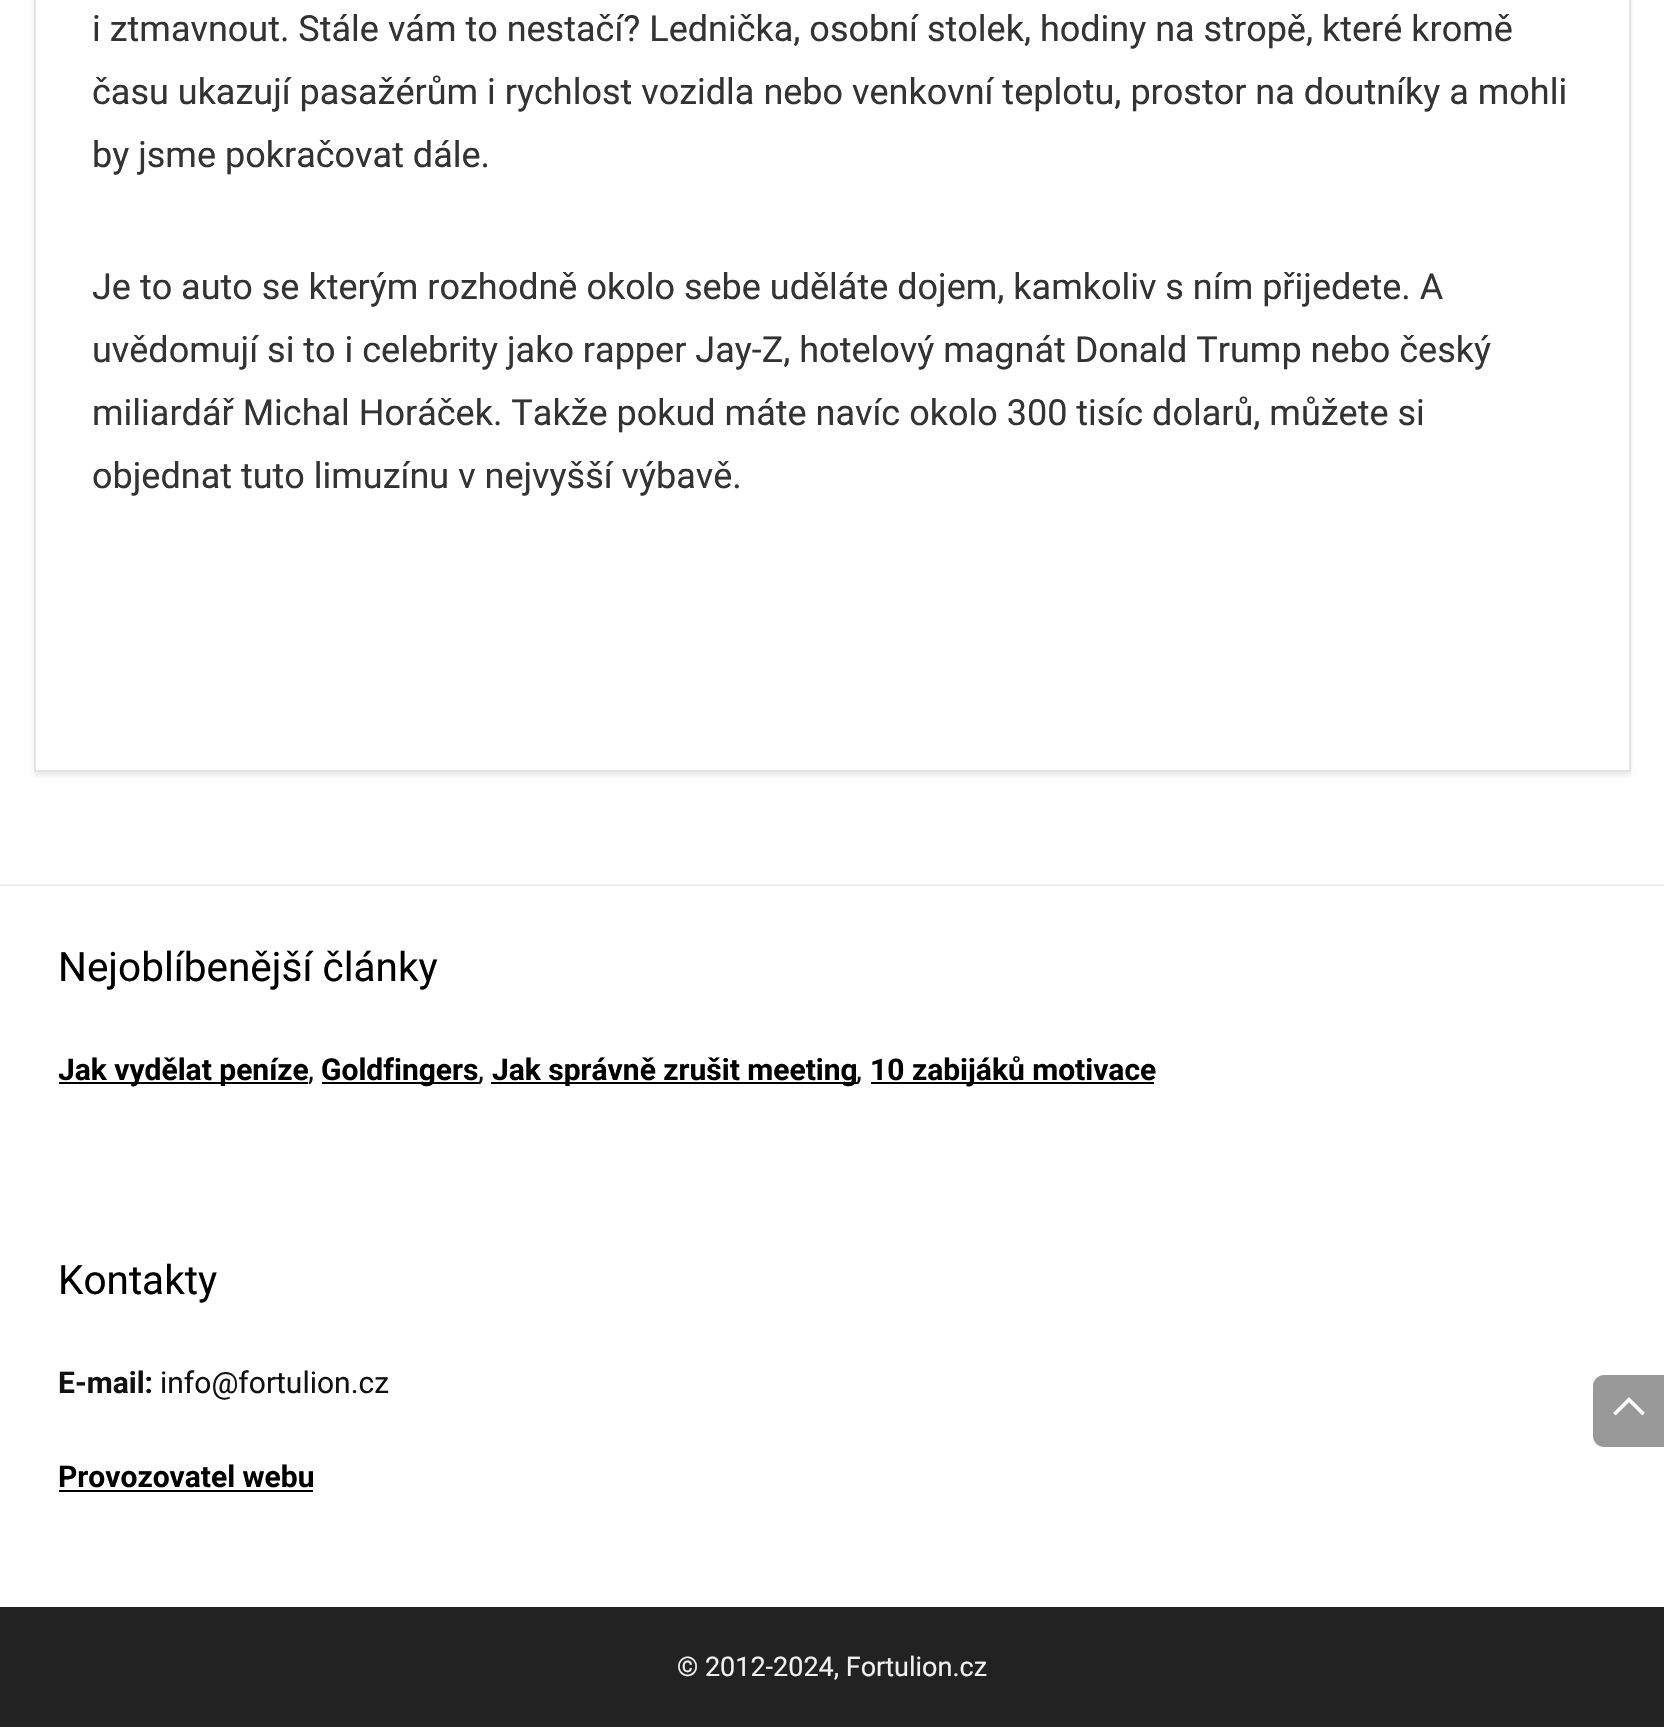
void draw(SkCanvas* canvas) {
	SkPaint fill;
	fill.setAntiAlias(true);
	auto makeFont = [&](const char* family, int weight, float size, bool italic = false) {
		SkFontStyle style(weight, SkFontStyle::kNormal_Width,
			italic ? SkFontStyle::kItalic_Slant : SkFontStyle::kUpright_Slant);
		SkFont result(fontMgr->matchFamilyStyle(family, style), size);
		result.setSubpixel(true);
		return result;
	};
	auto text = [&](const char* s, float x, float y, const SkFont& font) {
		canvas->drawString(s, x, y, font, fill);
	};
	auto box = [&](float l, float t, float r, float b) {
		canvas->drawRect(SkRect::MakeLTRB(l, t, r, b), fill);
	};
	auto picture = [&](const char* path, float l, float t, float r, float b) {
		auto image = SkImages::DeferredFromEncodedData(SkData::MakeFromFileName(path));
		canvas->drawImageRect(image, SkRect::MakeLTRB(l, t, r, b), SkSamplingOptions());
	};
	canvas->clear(0xFFFFFFFF);
	fill.setColor(0xFFECECEC);
	fill.setMaskFilter(SkMaskFilter::MakeBlur(kNormal_SkBlurStyle, 2));
	canvas->drawRect(SkRect::MakeLTRB(34, -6, 1631, 776), fill);
	fill.setMaskFilter(nullptr);
	fill.setColor(0xFFFFFFFF);
	canvas->drawRect(SkRect::MakeLTRB(35, -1, 1630, 771), fill);
	fill.setStyle(SkPaint::kStroke_Style);
	fill.setStrokeWidth(2);
	fill.setColor(0xFFE3E3E3);
	canvas->drawRect(SkRect::MakeLTRB(35, -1, 1630, 771), fill);
	fill.setStyle(SkPaint::kFill_Style);
	fill.setColor(0xFFEEEEEE);
	box(0, 884, 1664, 886);
	fill.setColor(0xFF000000);
	box(59, 1082, 308, 1084);
	box(322, 1082, 479, 1084);
	box(491, 1082, 857, 1084);
	box(871, 1082, 1154, 1084);
	box(59, 1490, 313, 1492);
	fill.setColor(0xFF222222);
	box(0, 1607, 1664, 1727);
	fill.setColor(0xFF999999);
	canvas->drawPath(SkPathBuilder().moveTo(1604, 1375).lineTo(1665, 1375).lineTo(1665, 1447).lineTo(1604, 1447).cubicTo(1598, 1447, 1593, 1442, 1593, 1436).lineTo(1593, 1386).cubicTo(1593, 1380, 1598, 1375, 1604, 1375).close().detach(), fill);
	picture("image0.png", 1613, 1397, 1645, 1416);
	auto font1 = makeFont("Roboto", 400, 36);
	fill.setColor(0xFF333333);
	text("i ztmavnout. Stále vám to nestačí? Lednička, osobní stolek, hodiny na stropě, které kromě", 92, 41, font1);
	text("času ukazují pasažérům i rychlost vozidla nebo venkovní teplotu, prostor na doutníky a mohli", 92, 104, font1);
	text("by jsme pokračovat dále.", 92, 167, font1);
	text("Je to auto se kterým rozhodně okolo sebe uděláte dojem, kamkoliv s ním přijedete. A", 92, 299, font1);
	text("uvědomují si to i celebrity jako rapper Jay-Z, hotelový magnát Donald Trump nebo český", 92, 362, font1);
	text("miliardář Michal Horáček. Takže pokud máte navíc okolo 300 tisíc dolarů, můžete si", 92, 425, font1);
	text("objednat tuto limuzínu v nejvyšší výbavě.", 92, 488, font1);
	auto font2 = makeFont("Roboto", 400, 40.5f);
	fill.setColor(0xFF000000);
	text("Nejoblíbenější články", 58, 981, font2);
	canvas->save();
	canvas->clipRect(SkRect::MakeLTRB(59, 943, 1607, 1143));
	auto font3 = makeFont("Roboto", 700, 30);
	text("Jak vydělat peníze", 58, 1080, font3);
	canvas->restore();
	auto font4 = makeFont("Roboto", 400, 30);
	fill.setColor(0xFF111111);
	text(",", 308, 1080, font4);
	fill.setColor(0xFF000000);
	text("Goldfingers", 321, 1080, font3);
	fill.setColor(0xFF111111);
	text(",", 478, 1080, font4);
	fill.setColor(0xFF000000);
	text("Jak správně zrušit meeting", 492, 1080, font3);
	fill.setColor(0xFF111111);
	text(",", 856, 1080, font4);
	fill.setColor(0xFF000000);
	text("10 zabijáků motivace", 870, 1080, font3);
	text("Kontakty", 58, 1294, font2);
	fill.setColor(0xFF111111);
	text("E-mail:", 58, 1393, font3);
	text("info@fortulion.cz", 160, 1393, font4);
	fill.setColor(0xFF000000);
	text("Provozovatel webu", 58, 1487, font3);
	auto font5 = makeFont("Roboto", 400, 27);
	fill.setColor(0xFFF1F1F1);
	text("© 2012-2024, Fortulion.cz", 677, 1676, font5);
}
